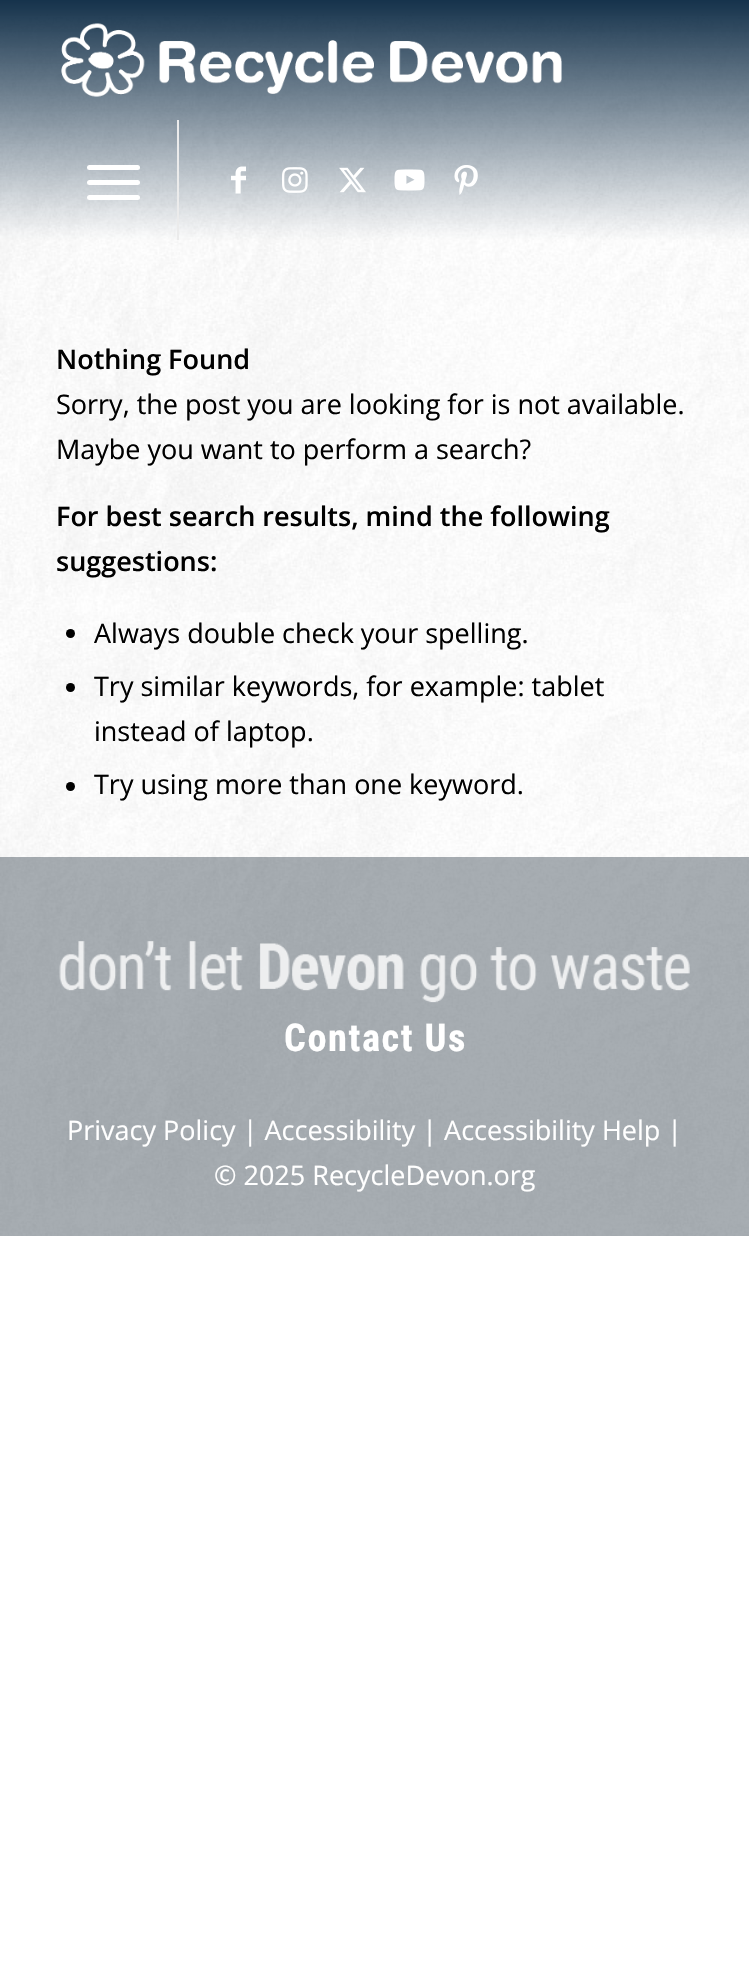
void draw(SkCanvas* canvas) {
	SkPaint fill;
	fill.setAntiAlias(true);
	auto makeFont = [&](const char* family, int weight, float size, bool italic = false) {
		SkFontStyle style(weight, SkFontStyle::kNormal_Width,
			italic ? SkFontStyle::kItalic_Slant : SkFontStyle::kUpright_Slant);
		SkFont result(fontMgr->matchFamilyStyle(family, style), size);
		result.setSubpixel(true);
		return result;
	};
	auto text = [&](const char* s, float x, float y, const SkFont& font) {
		canvas->drawString(s, x, y, font, fill);
	};
	auto spacedText = [&](const char* s, float x, float y, const SkFont& font, const SkPaint& ink, float letter, float word) {
		std::vector<SkGlyphID> glyphs(font.countText(s, strlen(s), SkTextEncoding::kUTF8));
		std::vector<float> xs(glyphs.size());
		font.textToGlyphs(s, strlen(s), SkTextEncoding::kUTF8, glyphs);
		font.getXPos(glyphs, xs, x);
		float extra = 0;
		for (size_t i = 0; i < glyphs.size(); i++) {
			xs[i] += extra;
			extra += letter + word * (glyphs[i] == font.unicharToGlyph(' '));
		}
		canvas->drawTextBlob(SkTextBlob::MakeFromPosHGlyphs(glyphs, xs, y, font), 0, 0, ink);
	};
	auto box = [&](float l, float t, float r, float b) {
		canvas->drawRect(SkRect::MakeLTRB(l, t, r, b), fill);
	};
	auto roundBox = [&](float l, float t, float r, float b, float radius) {
		canvas->drawRoundRect(SkRect::MakeLTRB(l, t, r, b), radius, radius, fill);
	};
	auto picture = [&](const char* path, float l, float t, float r, float b) {
		auto image = SkImages::DeferredFromEncodedData(SkData::MakeFromFileName(path));
		canvas->drawImageRect(image, SkRect::MakeLTRB(l, t, r, b), SkSamplingOptions());
	};
	canvas->clear(0xFFFFFFFF);
	picture("image0.png", 0, 0, 749, 1236);
	picture("image1.png", 61, 23, 562, 97);
	fill.setColor(0xFFEBEBEB);
	box(177, 120, 179, 240);
	fill.setColor(0xFFFFFFFF);
	roundBox(87, 180, 140, 185, 2.5f);
	roundBox(87, 165, 140, 170, 2.5f);
	roundBox(87, 195, 140, 200, 2.5f);
	picture("image2.png", 231, 166, 246, 194);
	picture("image3.png", 282, 167, 308, 193);
	picture("image4.png", 339, 167, 366, 193);
	picture("image5.png", 394, 169, 425, 191);
	picture("image6.png", 454, 165, 478, 195);
	fill.setColor(0xFF000000);
	canvas->drawCircle(70.5f, 633.5f, 4.5f, fill);
	canvas->drawCircle(70.5f, 687.5f, 4.5f, fill);
	canvas->drawCircle(70.5f, 786.5f, 4.5f, fill);
	fill.setColor(0x66263440);
	box(0, 857, 749, 1236);
	picture("image7.png", 59, 941, 690, 1003);
	auto font1 = makeFont("Open Sans", 600, 27);
	fill.setColor(0xFF000000);
	text("Nothing Found", 56, 369, font1);
	auto font2 = makeFont("Open Sans", 400, 27);
	text("Sorry, the post you are looking for is not available.", 56, 414, font2);
	text("Maybe you want to perform a search?", 56, 459, font2);
	text("For best search results, mind the following", 56, 526, font1);
	text("suggestions:", 56, 571, font1);
	text("Always double check your spelling.", 94, 643, font2);
	text("Try similar keywords, for example: tablet", 94, 696, font2);
	text("instead of laptop.", 94, 741, font2);
	text("Try using more than one keyword.", 94, 794, font2);
	auto font3 = makeFont("Roboto Condensed", 700, 38.5f);
	fill.setColor(0xFFFFFFFF);
	spacedText("Contact Us", 284, 1051, font3, fill, 1.5f, 0);
	text("Privacy Policy | Accessibility | Accessibility Help |", 67, 1140, font2);
	text("© 2025 RecycleDevon.org", 214, 1185, font2);
}
